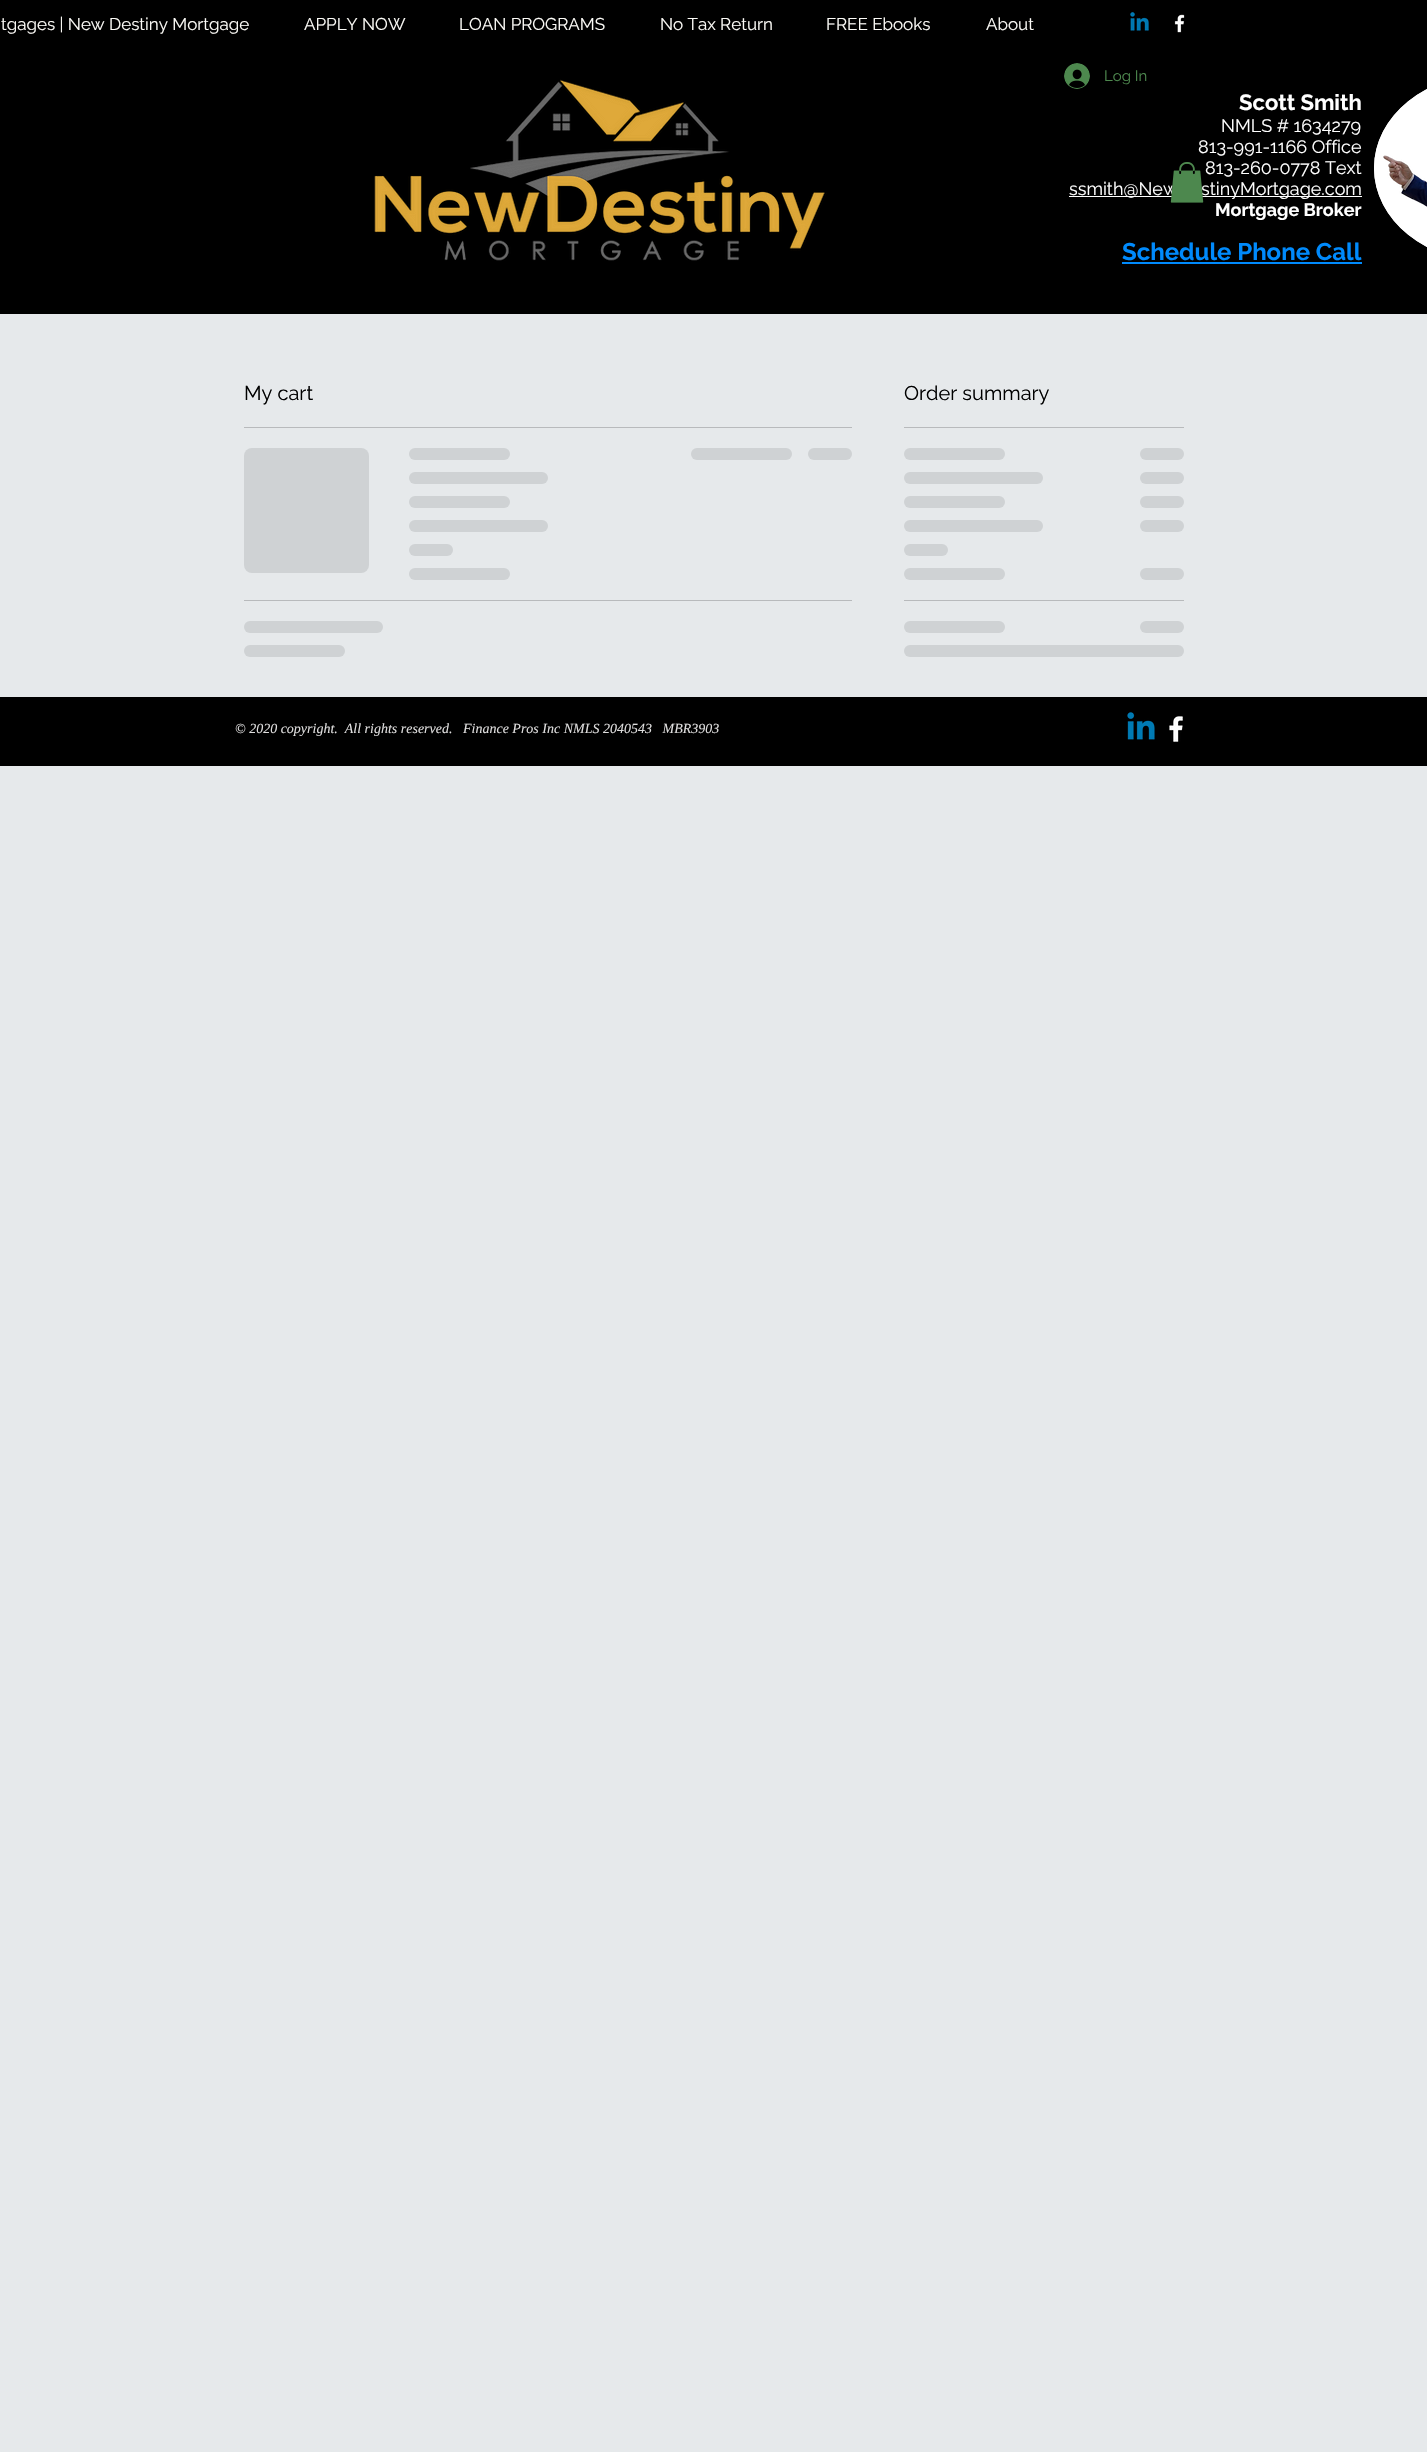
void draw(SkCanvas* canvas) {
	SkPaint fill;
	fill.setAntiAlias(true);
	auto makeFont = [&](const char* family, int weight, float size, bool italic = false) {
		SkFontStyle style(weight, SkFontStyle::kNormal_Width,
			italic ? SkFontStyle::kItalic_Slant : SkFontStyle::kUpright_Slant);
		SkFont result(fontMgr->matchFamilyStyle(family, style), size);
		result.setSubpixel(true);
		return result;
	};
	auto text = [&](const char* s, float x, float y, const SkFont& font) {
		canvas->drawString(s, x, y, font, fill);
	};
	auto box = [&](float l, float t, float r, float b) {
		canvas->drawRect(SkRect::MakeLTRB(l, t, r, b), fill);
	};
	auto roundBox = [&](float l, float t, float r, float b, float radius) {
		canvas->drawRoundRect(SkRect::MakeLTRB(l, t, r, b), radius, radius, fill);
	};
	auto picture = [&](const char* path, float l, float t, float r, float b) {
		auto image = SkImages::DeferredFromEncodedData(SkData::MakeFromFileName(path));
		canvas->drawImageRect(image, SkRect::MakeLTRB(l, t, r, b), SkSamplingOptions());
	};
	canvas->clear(0xFFE6E9EB);
	fill.setColor(0xFF000000);
	box(0, 0, 1427, 314);
	picture("image0.png", 1130, 12, 1149, 31);
	picture("image1.png", 1174, 14, 1185, 33);
	picture("image2.png", 1064, 63, 1090, 89);
	picture("image3.png", 374, 79, 827, 261);
	fill.setColor(0xFFFFFFFF);
	box(1069, 196, 1362, 197);
	canvas->drawOval(SkRect::MakeLTRB(1374, 74, 1606, 262), fill);
	fill.setStyle(SkPaint::kStroke_Style);
	fill.setStrokeWidth(6);
	canvas->drawPath(SkPathBuilder().moveTo(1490, 77).cubicTo(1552.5f, 77, 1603, 117.5f, 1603, 168).cubicTo(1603, 218.5f, 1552.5f, 259, 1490, 259).cubicTo(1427.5f, 259, 1377, 218.5f, 1377, 168).cubicTo(1377, 117.5f, 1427.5f, 77, 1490, 77).close().detach(), fill);
	picture("image4.png", 1383, 155, 1427, 207);
	fill.setStyle(SkPaint::kFill_Style);
	fill.setColor(0xFF008AFC);
	box(1122, 262, 1362, 264);
	fill.setColor(0xFFB8BABC);
	box(244, 427, 852, 428);
	{
		const SkColor colors[] = {0xFFCFD2D4, 0xFFB8BABC, 0xFFCFD2D4};
		const float stops[] = {0.25f, 0.37f, 0.63f};
		const SkPoint ends[] = {{244, 511}, {744, 511}};
		fill.setShader(SkGradientShader::MakeLinear(ends, colors, stops, 3, SkTileMode::kClamp));
		fill.setAlpha(255);
	}
	roundBox(244, 448, 369, 573, 8);
	{
		const SkColor colors[] = {0xFFCFD2D4, 0xFFB8BABC, 0xFFCFD2D4};
		const float stops[] = {0.25f, 0.37f, 0.63f};
		const SkPoint ends[] = {{409, 454}, {813, 454}};
		fill.setShader(SkGradientShader::MakeLinear(ends, colors, stops, 3, SkTileMode::kClamp));
		fill.setAlpha(255);
	}
	roundBox(409, 448, 510, 460, 6);
	{
		const SkColor colors[] = {0xFFCFD2D4, 0xFFB8BABC, 0xFFCFD2D4};
		const float stops[] = {0.25f, 0.37f, 0.63f};
		const SkPoint ends[] = {{409, 478}, {965, 478}};
		fill.setShader(SkGradientShader::MakeLinear(ends, colors, stops, 3, SkTileMode::kClamp));
		fill.setAlpha(255);
	}
	roundBox(409, 472, 548, 484, 6);
	{
		const SkColor colors[] = {0xFFCFD2D4, 0xFFB8BABC, 0xFFCFD2D4};
		const float stops[] = {0.25f, 0.37f, 0.63f};
		const SkPoint ends[] = {{409, 502}, {813, 502}};
		fill.setShader(SkGradientShader::MakeLinear(ends, colors, stops, 3, SkTileMode::kClamp));
		fill.setAlpha(255);
	}
	roundBox(409, 496, 510, 508, 6);
	{
		const SkColor colors[] = {0xFFCFD2D4, 0xFFB8BABC, 0xFFCFD2D4};
		const float stops[] = {0.25f, 0.37f, 0.63f};
		const SkPoint ends[] = {{409, 526}, {965, 526}};
		fill.setShader(SkGradientShader::MakeLinear(ends, colors, stops, 3, SkTileMode::kClamp));
		fill.setAlpha(255);
	}
	roundBox(409, 520, 548, 532, 6);
	{
		const SkColor colors[] = {0xFFCFD2D4, 0xFFB8BABC, 0xFFCFD2D4};
		const float stops[] = {0.25f, 0.37f, 0.63f};
		const SkPoint ends[] = {{409, 550}, {585, 550}};
		fill.setShader(SkGradientShader::MakeLinear(ends, colors, stops, 3, SkTileMode::kClamp));
		fill.setAlpha(255);
	}
	roundBox(409, 544, 453, 556, 6);
	{
		const SkColor colors[] = {0xFFCFD2D4, 0xFFB8BABC, 0xFFCFD2D4};
		const float stops[] = {0.25f, 0.37f, 0.63f};
		const SkPoint ends[] = {{409, 574}, {813, 574}};
		fill.setShader(SkGradientShader::MakeLinear(ends, colors, stops, 3, SkTileMode::kClamp));
		fill.setAlpha(255);
	}
	roundBox(409, 568, 510, 580, 6);
	{
		const SkColor colors[] = {0xFFCFD2D4, 0xFFB8BABC, 0xFFCFD2D4};
		const float stops[] = {0.25f, 0.37f, 0.63f};
		const SkPoint ends[] = {{691, 454}, {1095, 454}};
		fill.setShader(SkGradientShader::MakeLinear(ends, colors, stops, 3, SkTileMode::kClamp));
		fill.setAlpha(255);
	}
	roundBox(691, 448, 792, 460, 6);
	{
		const SkColor colors[] = {0xFFCFD2D4, 0xFFB8BABC, 0xFFCFD2D4};
		const float stops[] = {0.25f, 0.37f, 0.63f};
		const SkPoint ends[] = {{808, 454}, {984, 454}};
		fill.setShader(SkGradientShader::MakeLinear(ends, colors, stops, 3, SkTileMode::kClamp));
		fill.setAlpha(255);
	}
	roundBox(808, 448, 852, 460, 6);
	fill.setShader(nullptr);
	fill.setColor(0xFFB8BABC);
	box(244, 600, 852, 601);
	{
		const SkColor colors[] = {0xFFCFD2D4, 0xFFB8BABC, 0xFFCFD2D4};
		const float stops[] = {0.25f, 0.37f, 0.63f};
		const SkPoint ends[] = {{244, 627}, {800, 627}};
		fill.setShader(SkGradientShader::MakeLinear(ends, colors, stops, 3, SkTileMode::kClamp));
		fill.setAlpha(255);
	}
	roundBox(244, 621, 383, 633, 6);
	{
		const SkColor colors[] = {0xFFCFD2D4, 0xFFB8BABC, 0xFFCFD2D4};
		const float stops[] = {0.25f, 0.37f, 0.63f};
		const SkPoint ends[] = {{244, 651}, {648, 651}};
		fill.setShader(SkGradientShader::MakeLinear(ends, colors, stops, 3, SkTileMode::kClamp));
		fill.setAlpha(255);
	}
	roundBox(244, 645, 345, 657, 6);
	fill.setShader(nullptr);
	fill.setColor(0xFFB8BABC);
	box(904, 427, 1184, 428);
	{
		const SkColor colors[] = {0xFFCFD2D4, 0xFFB8BABC, 0xFFCFD2D4};
		const float stops[] = {0.25f, 0.37f, 0.63f};
		const SkPoint ends[] = {{904, 454}, {1308, 454}};
		fill.setShader(SkGradientShader::MakeLinear(ends, colors, stops, 3, SkTileMode::kClamp));
		fill.setAlpha(255);
	}
	roundBox(904, 448, 1005, 460, 6);
	{
		const SkColor colors[] = {0xFFCFD2D4, 0xFFB8BABC, 0xFFCFD2D4};
		const float stops[] = {0.25f, 0.37f, 0.63f};
		const SkPoint ends[] = {{1140, 454}, {1316, 454}};
		fill.setShader(SkGradientShader::MakeLinear(ends, colors, stops, 3, SkTileMode::kClamp));
		fill.setAlpha(255);
	}
	roundBox(1140, 448, 1184, 460, 6);
	{
		const SkColor colors[] = {0xFFCFD2D4, 0xFFB8BABC, 0xFFCFD2D4};
		const float stops[] = {0.25f, 0.37f, 0.63f};
		const SkPoint ends[] = {{904, 478}, {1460, 478}};
		fill.setShader(SkGradientShader::MakeLinear(ends, colors, stops, 3, SkTileMode::kClamp));
		fill.setAlpha(255);
	}
	roundBox(904, 472, 1043, 484, 6);
	{
		const SkColor colors[] = {0xFFCFD2D4, 0xFFB8BABC, 0xFFCFD2D4};
		const float stops[] = {0.25f, 0.37f, 0.63f};
		const SkPoint ends[] = {{1140, 478}, {1316, 478}};
		fill.setShader(SkGradientShader::MakeLinear(ends, colors, stops, 3, SkTileMode::kClamp));
		fill.setAlpha(255);
	}
	roundBox(1140, 472, 1184, 484, 6);
	{
		const SkColor colors[] = {0xFFCFD2D4, 0xFFB8BABC, 0xFFCFD2D4};
		const float stops[] = {0.25f, 0.37f, 0.63f};
		const SkPoint ends[] = {{904, 502}, {1308, 502}};
		fill.setShader(SkGradientShader::MakeLinear(ends, colors, stops, 3, SkTileMode::kClamp));
		fill.setAlpha(255);
	}
	roundBox(904, 496, 1005, 508, 6);
	{
		const SkColor colors[] = {0xFFCFD2D4, 0xFFB8BABC, 0xFFCFD2D4};
		const float stops[] = {0.25f, 0.37f, 0.63f};
		const SkPoint ends[] = {{1140, 502}, {1316, 502}};
		fill.setShader(SkGradientShader::MakeLinear(ends, colors, stops, 3, SkTileMode::kClamp));
		fill.setAlpha(255);
	}
	roundBox(1140, 496, 1184, 508, 6);
	{
		const SkColor colors[] = {0xFFCFD2D4, 0xFFB8BABC, 0xFFCFD2D4};
		const float stops[] = {0.25f, 0.37f, 0.63f};
		const SkPoint ends[] = {{904, 526}, {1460, 526}};
		fill.setShader(SkGradientShader::MakeLinear(ends, colors, stops, 3, SkTileMode::kClamp));
		fill.setAlpha(255);
	}
	roundBox(904, 520, 1043, 532, 6);
	{
		const SkColor colors[] = {0xFFCFD2D4, 0xFFB8BABC, 0xFFCFD2D4};
		const float stops[] = {0.25f, 0.37f, 0.63f};
		const SkPoint ends[] = {{1140, 526}, {1316, 526}};
		fill.setShader(SkGradientShader::MakeLinear(ends, colors, stops, 3, SkTileMode::kClamp));
		fill.setAlpha(255);
	}
	roundBox(1140, 520, 1184, 532, 6);
	{
		const SkColor colors[] = {0xFFCFD2D4, 0xFFB8BABC, 0xFFCFD2D4};
		const float stops[] = {0.25f, 0.37f, 0.63f};
		const SkPoint ends[] = {{904, 550}, {1080, 550}};
		fill.setShader(SkGradientShader::MakeLinear(ends, colors, stops, 3, SkTileMode::kClamp));
		fill.setAlpha(255);
	}
	roundBox(904, 544, 948, 556, 6);
	{
		const SkColor colors[] = {0xFFCFD2D4, 0xFFB8BABC, 0xFFCFD2D4};
		const float stops[] = {0.25f, 0.37f, 0.63f};
		const SkPoint ends[] = {{904, 574}, {1308, 574}};
		fill.setShader(SkGradientShader::MakeLinear(ends, colors, stops, 3, SkTileMode::kClamp));
		fill.setAlpha(255);
	}
	roundBox(904, 568, 1005, 580, 6);
	{
		const SkColor colors[] = {0xFFCFD2D4, 0xFFB8BABC, 0xFFCFD2D4};
		const float stops[] = {0.25f, 0.37f, 0.63f};
		const SkPoint ends[] = {{1140, 574}, {1316, 574}};
		fill.setShader(SkGradientShader::MakeLinear(ends, colors, stops, 3, SkTileMode::kClamp));
		fill.setAlpha(255);
	}
	roundBox(1140, 568, 1184, 580, 6);
	fill.setShader(nullptr);
	fill.setColor(0xFFB8BABC);
	box(904, 600, 1184, 601);
	{
		const SkColor colors[] = {0xFFCFD2D4, 0xFFB8BABC, 0xFFCFD2D4};
		const float stops[] = {0.25f, 0.37f, 0.63f};
		const SkPoint ends[] = {{904, 627}, {1308, 627}};
		fill.setShader(SkGradientShader::MakeLinear(ends, colors, stops, 3, SkTileMode::kClamp));
		fill.setAlpha(255);
	}
	roundBox(904, 621, 1005, 633, 6);
	{
		const SkColor colors[] = {0xFFCFD2D4, 0xFFB8BABC, 0xFFCFD2D4};
		const float stops[] = {0.25f, 0.37f, 0.63f};
		const SkPoint ends[] = {{1140, 627}, {1316, 627}};
		fill.setShader(SkGradientShader::MakeLinear(ends, colors, stops, 3, SkTileMode::kClamp));
		fill.setAlpha(255);
	}
	roundBox(1140, 621, 1184, 633, 6);
	{
		const SkColor colors[] = {0xFFCFD2D4, 0xFFB8BABC, 0xFFCFD2D4};
		const float stops[] = {0.25f, 0.37f, 0.63f};
		const SkPoint ends[] = {{904, 651}, {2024, 651}};
		fill.setShader(SkGradientShader::MakeLinear(ends, colors, stops, 3, SkTileMode::kClamp));
		fill.setAlpha(255);
	}
	roundBox(904, 645, 1184, 657, 6);
	fill.setShader(nullptr);
	fill.setColor(0xFF000000);
	box(0, 697, 1427, 766);
	picture("image6.png", 1127, 712, 1155, 740);
	picture("image7.png", 1169, 716, 1183, 742);
	auto font1 = makeFont("Raleway", 400, 17);
	fill.setColor(0xFFFCFBF7);
	text("tgages | New Destiny Mortgage", 1, 30, font1);
	text("APPLY NOW", 304, 30, font1);
	text("LOAN PROGRAMS", 459, 30, font1);
	text("No Tax Return", 660, 30, font1);
	text("FREE Ebooks", 826, 30, font1);
	text("About", 986, 30, font1);
	auto font2 = makeFont("Raleway", 400, 15);
	fill.setColor(0xFF4D884E);
	text("Log In", 1104, 81, font2);
	auto font3 = makeFont("Raleway", 700, 22);
	fill.setColor(0xFFFFFFFF);
	text("Scott Smith", 1239, 110, font3);
	auto font4 = makeFont("Raleway", 400, 18);
	text("NMLS # 1634279", 1221, 132, font4);
	text("813-991-1166 Office", 1198, 153, font4);
	text("813-260-0778 Text", 1205, 174, font4);
	text("ssmith@New", 1069, 195, font4);
	text("stinyMortgage.com", 1201, 195, font4);
	auto font5 = makeFont("Raleway", 700, 18);
	text("Mortgage Broker", 1215, 216, font5);
	picture("image5.png", 1170, 162, 1204, 203);
	auto font6 = makeFont("Raleway", 700, 24);
	fill.setColor(0xFF008AFC);
	text("Schedule Phone Call", 1122, 260, font6);
	auto font7 = makeFont("Raleway", 400, 20);
	fill.setColor(0xFF000000);
	text("My cart", 244, 400, font7);
	text("Order summary", 904, 400, font7);
	auto font8 = makeFont("Liberation Serif", 400, 14, true);
	fill.setColor(0xFFDEDDDD);
	text("© 2020 copyright.  All rights reserved.   Finance Pros Inc NMLS 2040543   MBR3903", 235, 733, font8);
}
